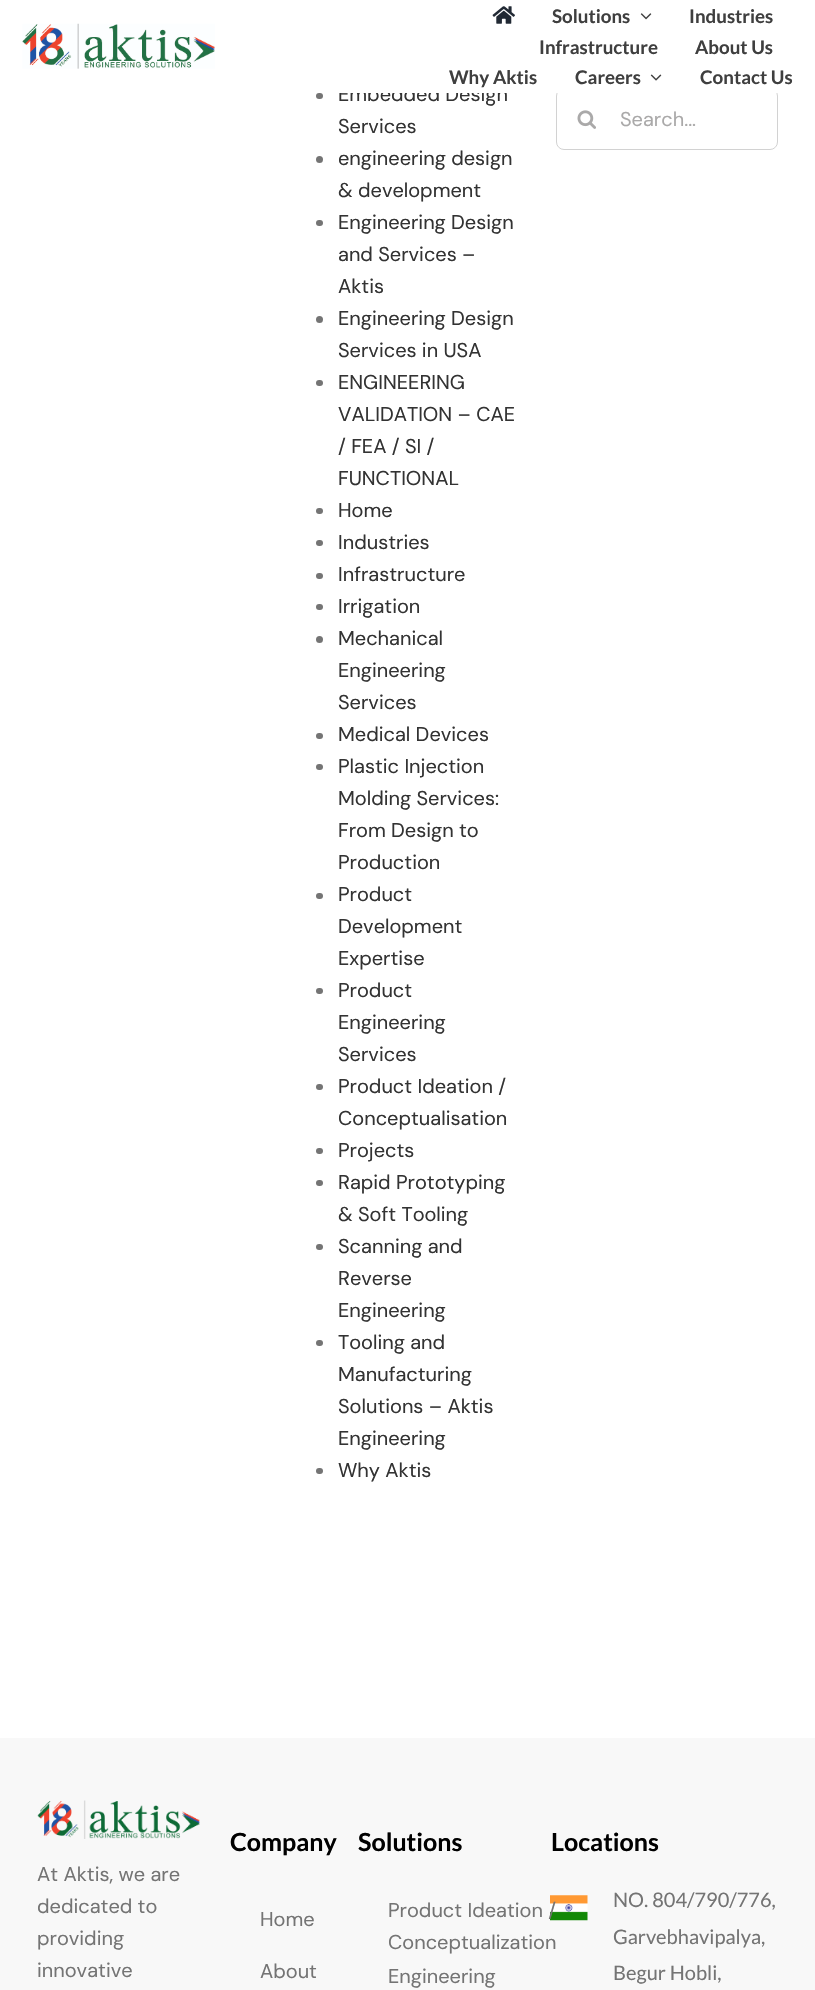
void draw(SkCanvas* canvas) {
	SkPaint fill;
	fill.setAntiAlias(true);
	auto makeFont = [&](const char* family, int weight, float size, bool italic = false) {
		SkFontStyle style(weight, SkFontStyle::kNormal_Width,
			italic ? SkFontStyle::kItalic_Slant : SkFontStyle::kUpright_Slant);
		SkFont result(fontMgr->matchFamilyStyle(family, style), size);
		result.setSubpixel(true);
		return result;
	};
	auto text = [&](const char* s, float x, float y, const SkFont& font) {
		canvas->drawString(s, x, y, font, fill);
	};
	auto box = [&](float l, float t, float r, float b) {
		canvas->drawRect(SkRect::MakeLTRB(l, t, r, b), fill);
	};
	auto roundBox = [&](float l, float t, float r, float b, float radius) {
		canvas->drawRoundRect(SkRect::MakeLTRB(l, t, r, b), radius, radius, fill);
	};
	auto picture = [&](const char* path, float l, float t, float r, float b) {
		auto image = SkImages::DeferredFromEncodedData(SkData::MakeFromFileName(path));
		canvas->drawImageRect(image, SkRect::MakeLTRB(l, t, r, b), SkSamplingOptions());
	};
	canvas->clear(0xFFFFFFFF);
	picture("image0.png", 22, 23, 215, 69);
	picture("image1.png", 492, 6, 515, 24);
	picture("image2.png", 640, 13, 652, 20);
	picture("image3.png", 650, 74, 662, 81);
	fill.setColor(0xFF747474);
	roundBox(316, 93, 323, 99, 3);
	canvas->drawCircle(319.5f, 159.5f, 3.5f, fill);
	roundBox(316, 220, 323, 226, 3);
	canvas->drawCircle(319.5f, 319.5f, 3.5f, fill);
	roundBox(316, 380, 323, 386, 3);
	roundBox(316, 508, 323, 514, 3);
	roundBox(316, 540, 323, 546, 3);
	roundBox(316, 573, 323, 579, 3);
	roundBox(316, 604, 323, 610, 3);
	canvas->drawCircle(319.5f, 639.5f, 3.5f, fill);
	roundBox(316, 733, 323, 739, 3);
	roundBox(316, 764, 323, 770, 3);
	roundBox(316, 893, 323, 899, 3);
	roundBox(316, 988, 323, 994, 3);
	roundBox(316, 1084, 323, 1090, 3);
	roundBox(316, 1148, 323, 1154, 3);
	roundBox(316, 1180, 323, 1186, 3);
	roundBox(316, 1244, 323, 1250, 3);
	roundBox(316, 1340, 323, 1346, 3);
	roundBox(316, 1468, 323, 1474, 3);
	fill.setStyle(SkPaint::kStroke_Style);
	fill.setStrokeWidth(1);
	fill.setColor(0xFFD2D2D2);
	canvas->drawRoundRect(SkRect::MakeLTRB(556.5f, 88.5f, 777.5f, 149.5f), 7.5f, 7.5f, fill);
	picture("image4.png", 577, 110, 596, 129);
	fill.setStyle(SkPaint::kFill_Style);
	fill.setColor(0xFFF8F8F8);
	box(0, 1738, 815, 1990);
	picture("image5.png", 37, 1800, 200, 1839);
	picture("image6.png", 550, 1895, 588, 1921);
	auto font1 = makeFont("Lato", 700, 18.75f);
	fill.setColor(0xFF3F3F3F);
	text("Solutions", 552, 23, font1);
	text("Industries", 689, 23, font1);
	text("Infrastructure", 539, 54, font1);
	text("About Us", 695, 54, font1);
	text("Careers", 575, 84, font1);
	text("Contact Us", 700, 84, font1);
	auto font2 = makeFont("DM Sans", 400, 20);
	fill.setColor(0xFF333333);
	text("Embedded Design", 338, 101, font2);
	fill.setColor(0xFFFFFFFF);
	box(339, 86, 778, 93);
	fill.setColor(0xFF3F3F3F);
	text("Why Aktis", 449, 84, font1);
	fill.setColor(0xFF333333);
	text("Services", 338, 133, font2);
	text("engineering design", 338, 165, font2);
	text("& development", 338, 197, font2);
	text("Engineering Design", 338, 229, font2);
	text("and Services –", 338, 261, font2);
	text("Aktis", 338, 293, font2);
	text("Engineering Design", 338, 325, font2);
	text("Services in USA", 338, 357, font2);
	text("ENGINEERING", 338, 389, font2);
	text("VALIDATION – CAE", 338, 421, font2);
	text("/ FEA / SI /", 338, 453, font2);
	text("FUNCTIONAL", 338, 485, font2);
	text("Home", 338, 517, font2);
	text("Industries", 338, 549, font2);
	text("Infrastructure", 338, 581, font2);
	text("Irrigation", 338, 613, font2);
	text("Mechanical", 338, 645, font2);
	text("Engineering", 338, 677, font2);
	text("Services", 338, 709, font2);
	text("Medical Devices", 338, 741, font2);
	text("Plastic Injection", 338, 773, font2);
	text("Molding Services:", 338, 805, font2);
	text("From Design to", 338, 837, font2);
	text("Production", 338, 869, font2);
	text("Product", 338, 901, font2);
	text("Development", 338, 933, font2);
	text("Expertise", 338, 965, font2);
	text("Product", 338, 997, font2);
	text("Engineering", 338, 1029, font2);
	text("Services", 338, 1061, font2);
	text("Product Ideation /", 338, 1093, font2);
	text("Conceptualisation", 338, 1125, font2);
	text("Projects", 338, 1157, font2);
	text("Rapid Prototyping", 338, 1189, font2);
	text("& Soft Tooling", 338, 1221, font2);
	text("Scanning and", 338, 1253, font2);
	text("Reverse", 338, 1285, font2);
	text("Engineering", 338, 1317, font2);
	text("Tooling and", 338, 1349, font2);
	text("Manufacturing", 338, 1381, font2);
	text("Solutions – Aktis", 338, 1413, font2);
	text("Engineering", 338, 1445, font2);
	text("Why Aktis", 338, 1477, font2);
	fill.setColor(0xFFAAA9A9);
	text("Search...", 620, 126, font2);
	fill.setColor(0xFF747474);
	text("At Aktis, we are", 37, 1881, font2);
	text("dedicated to", 37, 1913, font2);
	text("providing", 37, 1945, font2);
	text("innovative", 37, 1977, font2);
	auto font3 = makeFont("Lato", 700, 25);
	fill.setColor(0xFF000000);
	text("Company", 230, 1851, font3);
	fill.setColor(0xFF747474);
	text("Home", 260, 1926, font2);
	text("About", 260, 1978, font2);
	fill.setColor(0xFF000000);
	text("Solutions", 358, 1851, font3);
	fill.setColor(0xFF747474);
	text("Product Ideation /", 388, 1917, font2);
	text("Conceptualization", 388, 1949, font2);
	text("Engineering", 388, 1983, font2);
	fill.setColor(0xFF000000);
	text("Locations", 551, 1851, font3);
	auto font4 = makeFont("Lato", 400, 20);
	fill.setColor(0xFF747474);
	text("NO. 804/790/776,", 613, 1907, font4);
	text("Garvebhavipalya,", 613, 1944, font4);
	text("Begur Hobli,", 613, 1980, font4);
}
